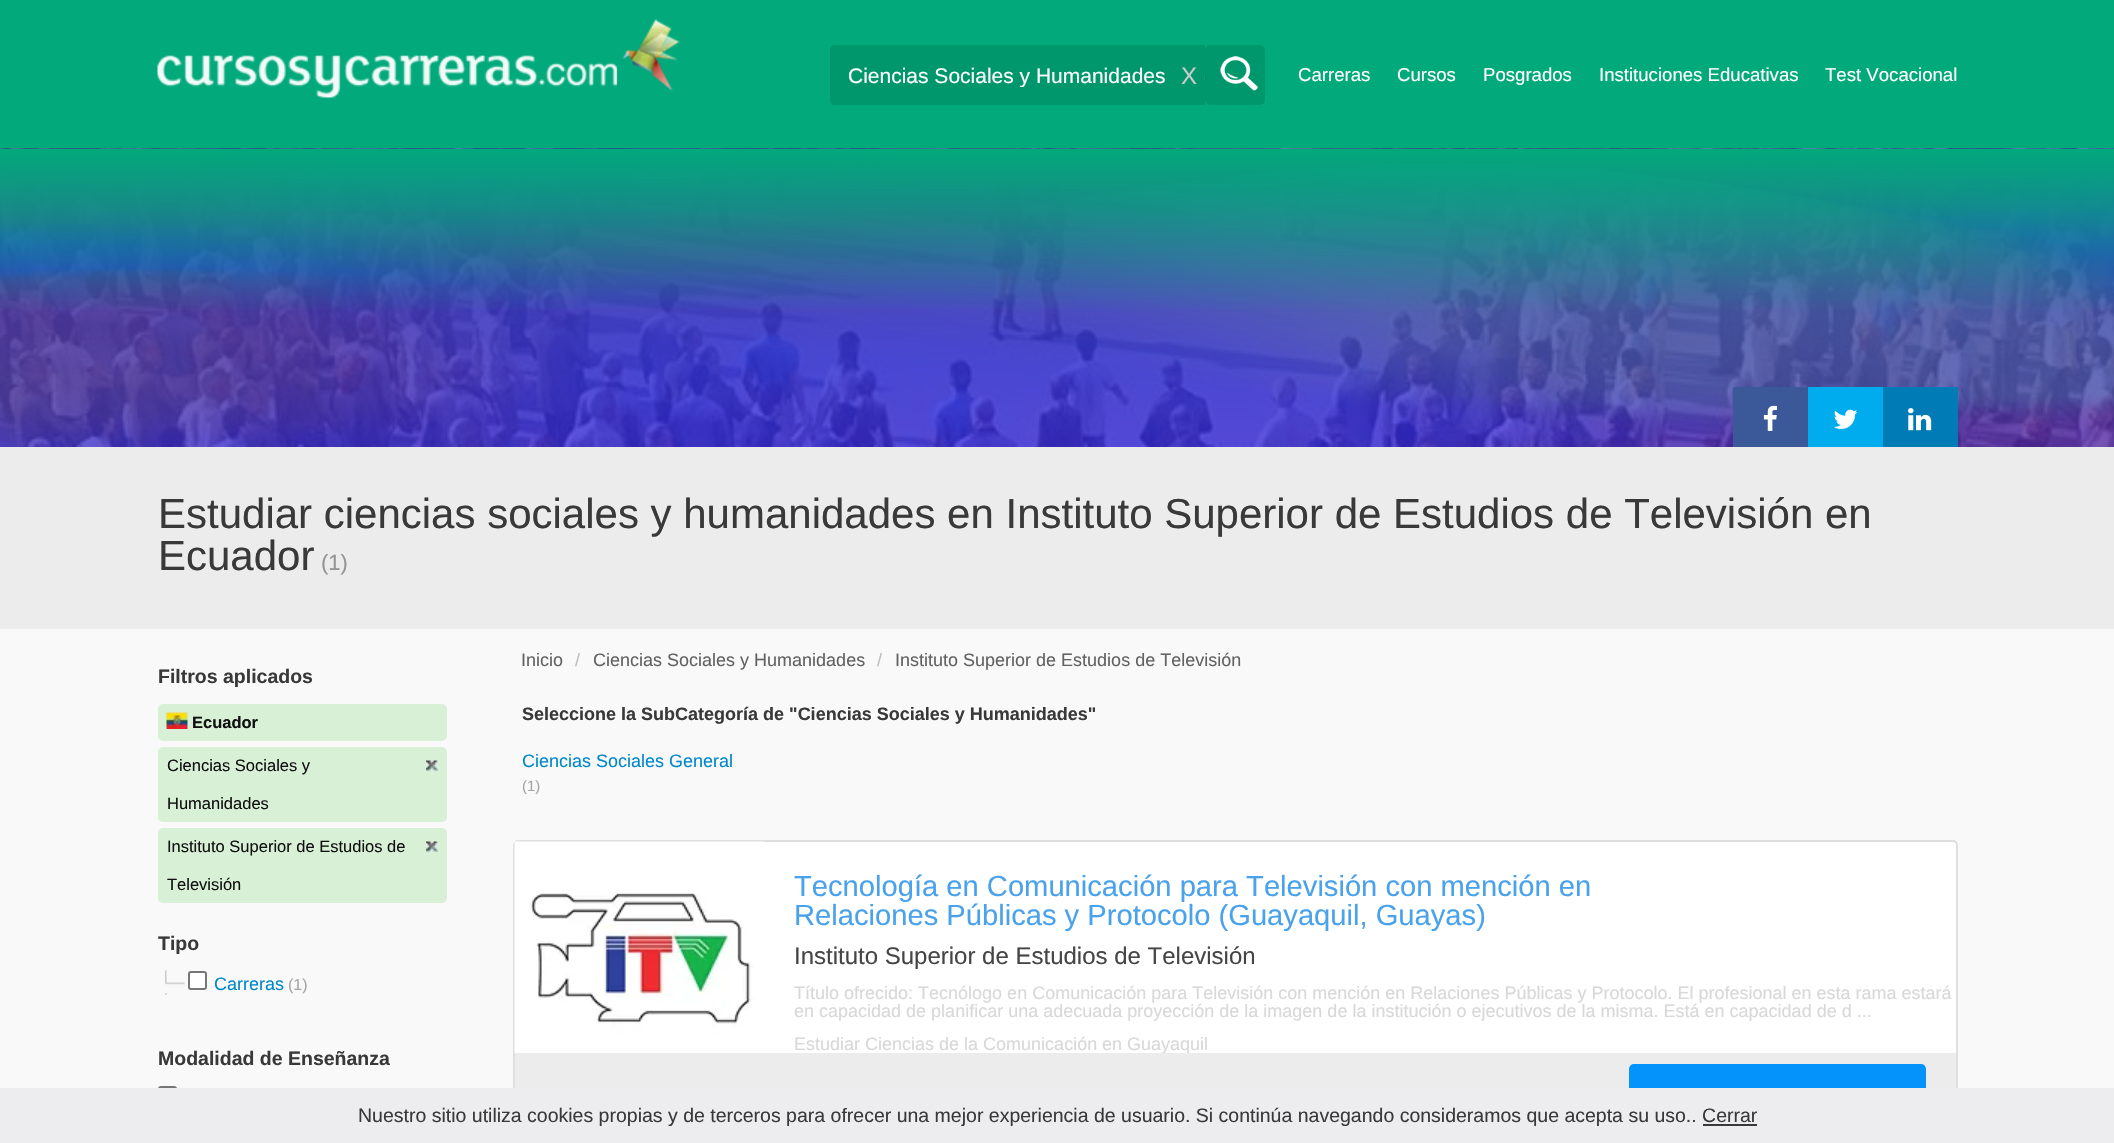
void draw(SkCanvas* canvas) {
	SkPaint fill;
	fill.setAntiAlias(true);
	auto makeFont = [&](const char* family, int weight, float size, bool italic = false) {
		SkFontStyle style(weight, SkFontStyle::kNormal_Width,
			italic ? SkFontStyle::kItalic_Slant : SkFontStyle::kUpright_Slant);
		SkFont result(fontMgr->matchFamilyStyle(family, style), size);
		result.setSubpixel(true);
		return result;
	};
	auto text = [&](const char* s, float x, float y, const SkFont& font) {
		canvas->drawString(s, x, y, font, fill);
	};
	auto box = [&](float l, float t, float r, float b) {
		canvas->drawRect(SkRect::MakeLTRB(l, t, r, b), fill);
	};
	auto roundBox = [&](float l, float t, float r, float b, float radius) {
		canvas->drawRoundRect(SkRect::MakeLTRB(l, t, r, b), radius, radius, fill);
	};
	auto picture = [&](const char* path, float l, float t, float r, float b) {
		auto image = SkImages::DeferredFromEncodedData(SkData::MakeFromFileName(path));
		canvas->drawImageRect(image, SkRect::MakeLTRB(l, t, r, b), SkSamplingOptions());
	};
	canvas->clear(0xFFF9F9F9);
	fill.setColor(0xFF01A97B);
	box(0, 0, 2114, 153);
	picture("image0.png", 157, 19, 680, 98);
	fill.setColor(0xFF00976C);
	canvas->drawPath(SkPathBuilder().moveTo(835, 45).lineTo(1205, 45).lineTo(1205, 105).lineTo(835, 105).cubicTo(832, 105, 830, 103, 830, 100).lineTo(830, 50).cubicTo(830, 47, 832, 45, 835, 45).close().detach(), fill);
	roundBox(1205, 45, 1265, 105, 5);
	picture("image1.png", 1204, 56, 1258, 91);
	picture("image2.png", 0, 148, 2114, 447);
	{
		const SkColor colors[] = {0xFF01A978, 0x8001A978};
		const float stops[] = {0, 1};
		const SkPoint ends[] = {{1058, 148}, {1058, 447}};
		fill.setShader(SkGradientShader::MakeLinear(ends, colors, stops, 2, SkTileMode::kClamp));
		fill.setAlpha(255);
	}
	box(0, 149, 2114, 447);
	picture("image6.png", 0, 148, 2114, 447);
	fill.setShader(nullptr);
	fill.setColor(0xFF3B5998);
	box(1733, 387, 1808, 447);
	picture("image3.png", 1763, 405, 1777, 431);
	fill.setColor(0xFF00ACED);
	box(1808, 387, 1883, 447);
	picture("image4.png", 1833, 409, 1858, 429);
	fill.setColor(0xFF007BB6);
	box(1883, 387, 1958, 447);
	picture("image5.png", 1908, 408, 1932, 431);
	{
		const SkColor colors[] = {0xFF01A97B, 0xB301A97B, 0x0001A97B};
		const float stops[] = {0, 0.26f, 0.72f};
		const SkPoint ends[] = {{1058, 148}, {1058, 378}};
		fill.setShader(SkGradientShader::MakeLinear(ends, colors, stops, 3, SkTileMode::kClamp));
		fill.setAlpha(255);
	}
	box(0, 149, 2114, 310);
	fill.setShader(nullptr);
	fill.setColor(0xFFECECEC);
	box(0, 447, 2114, 629);
	fill.setColor(0xFFD8F0D6);
	roundBox(158, 704, 447, 741, 5);
	picture("image7.png", 166, 712, 188, 729);
	roundBox(158, 747, 447, 822, 5);
	picture("image8.png", 426, 760, 438, 771);
	roundBox(158, 828, 447, 903, 5);
	picture("image8.png", 426, 841, 438, 852);
	picture("image9.png", 165, 970, 167, 995);
	picture("image10.png", 165, 970, 167, 980);
	picture("image11.png", 165, 970, 167, 995);
	picture("image12.png", 165, 982, 185, 993);
	fill.setColor(0xFFFFFFFF);
	canvas->drawRoundRect(SkRect::MakeLTRB(189, 972, 206, 989), 2, 2, fill);
	fill.setStyle(SkPaint::kStroke_Style);
	fill.setStrokeWidth(2);
	fill.setColor(0xFF767676);
	canvas->drawRoundRect(SkRect::MakeLTRB(189, 972, 206, 989), 2, 2, fill);
	canvas->drawRoundRect(SkRect::MakeLTRB(159, 1087, 176, 1105), 2, 2, fill);
	fill.setStyle(SkPaint::kFill_Style);
	fill.setColor(0xFFFFFFFF);
	canvas->drawRoundRect(SkRect::MakeLTRB(514, 841, 1957, 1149), 4, 4, fill);
	fill.setStyle(SkPaint::kStroke_Style);
	fill.setColor(0xFFDFDFDF);
	canvas->drawRoundRect(SkRect::MakeLTRB(514, 841, 1957, 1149), 4, 4, fill);
	picture("image13.png", 514, 841, 764, 1053);
	fill.setStyle(SkPaint::kFill_Style);
	fill.setColor(0xFFECECEC);
	box(515, 1053, 1956, 1088);
	fill.setColor(0xFF0393FA);
	roundBox(1629, 1064, 1926, 1136, 5);
	fill.setColor(0xFFEDECEF);
	box(0, 1088, 2114, 1143);
	fill.setColor(0xFF393939);
	box(1703, 1124, 1757, 1126);
	canvas->save();
	canvas->clipRect(SkRect::MakeLTRB(848, 63, 1202, 87));
	auto font1 = makeFont("Liberation Sans", 400, 21);
	fill.setColor(0xFFFFFFFF);
	text("Ciencias Sociales y Humanidades", 848, 83, font1);
	canvas->restore();
	auto font2 = makeFont("Liberation Sans", 400, 24);
	fill.setColor(0xFFCCCCCC);
	text("X", 1181, 84, font2);
	auto font3 = makeFont("Liberation Sans", 400, 18.6f);
	fill.setColor(0xFFFFFFFF);
	text("Carreras", 1298, 81, font3);
	text("Cursos", 1397, 81, font3);
	text("Posgrados", 1483, 81, font3);
	text("Instituciones Educativas", 1599, 81, font3);
	text("Test Vocacional", 1825, 81, font3);
	auto font4 = makeFont("Liberation Sans", 400, 42);
	fill.setColor(0xFF393939);
	text("Estudiar ciencias sociales y humanidades en Instituto Superior de Estudios de Televisión en", 158, 528, font4);
	text("Ecuador", 158, 570, font4);
	auto font5 = makeFont("Liberation Sans", 400, 22);
	fill.setColor(0xFF959494);
	text("(1)", 321, 570, font5);
	auto font6 = makeFont("Liberation Sans", 700, 19.5f);
	fill.setColor(0xFF393939);
	text("Filtros aplicados", 158, 683, font6);
	auto font7 = makeFont("Liberation Sans", 700, 16.5f);
	fill.setColor(0xFF111111);
	text("Ecuador", 192, 728, font7);
	auto font8 = makeFont("Liberation Sans", 400, 16.5f);
	text("Ciencias Sociales y", 167, 771, font8);
	text("Humanidades", 167, 809, font8);
	text("Instituto Superior de Estudios de", 167, 852, font8);
	text("Televisión", 167, 890, font8);
	canvas->save();
	canvas->clipRect(SkRect::MakeLTRB(158, 629, 1958, 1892));
	fill.setColor(0xFF393939);
	text("Tipo", 158, 950, font6);
	canvas->restore();
	auto font9 = makeFont("Liberation Sans", 400, 18);
	fill.setColor(0xFF0088CC);
	text("Carreras", 214, 990, font9);
	auto font10 = makeFont("Liberation Sans", 400, 16);
	fill.setColor(0xFFA6A6A6);
	text("(1)", 288, 990, font10);
	fill.setColor(0xFF393939);
	text("Modalidad de Enseñanza", 158, 1065, font6);
	fill.setColor(0xFF626262);
	text("Inicio", 521, 666, font9);
	fill.setColor(0xFFBEBEBE);
	text("/", 575, 666, font9);
	fill.setColor(0xFF626262);
	text("Ciencias Sociales y Humanidades", 593, 666, font9);
	fill.setColor(0xFFBEBEBE);
	text("/", 877, 666, font9);
	fill.setColor(0xFF626262);
	text("Instituto Superior de Estudios de Televisión", 895, 666, font9);
	auto font11 = makeFont("Liberation Sans", 700, 18);
	fill.setColor(0xFF393939);
	text("Seleccione la SubCategoría de \"Ciencias Sociales y Humanidades\"", 522, 720, font11);
	fill.setColor(0xFF0088CC);
	text("Ciencias Sociales General", 522, 767, font9);
	auto font12 = makeFont("Liberation Sans", 400, 15);
	fill.setColor(0xFFA6A6A6);
	text("(1)", 522, 791, font12);
	auto font13 = makeFont("Liberation Sans", 400, 29.15f);
	fill.setColor(0xFF49A2EB);
	text("Tecnología en Comunicación para Televisión con mención en", 794, 896, font13);
	text("Relaciones Públicas y Protocolo (Guayaquil, Guayas)", 794, 925, font13);
	fill.setColor(0xFF454545);
	text("Instituto Superior de Estudios de Televisión", 794, 964, font2);
	fill.setColor(0xFFD8D8D8);
	text("Título ofrecido: Tecnólogo en Comunicación para Televisión con mención en Relaciones Públicas y Protocolo. El profesional en esta rama estará", 794, 999, font9);
	text("en capacidad de planificar una adecuada proyección de la imagen de la institución o ejecutivos de la misma. Está en capacidad de d ...", 794, 1017, font9);
	text("Estudiar Ciencias de la Comunicación", 794, 1050, font9);
	canvas->save();
	canvas->clipRect(SkRect::MakeLTRB(794, 1035, 1544, 1053));
	text("en Guayaquil", 1102, 1050, font9);
	canvas->restore();
	auto font14 = makeFont("Liberation Sans", 400, 19.5f);
	fill.setColor(0xFF393939);
	text("Nuestro sitio utiliza cookies propias y de terceros para ofrecer una mejor experiencia de usuario. Si continúa navegando consideramos que acepta su uso.. Cerrar", 358, 1122, font14);
}
